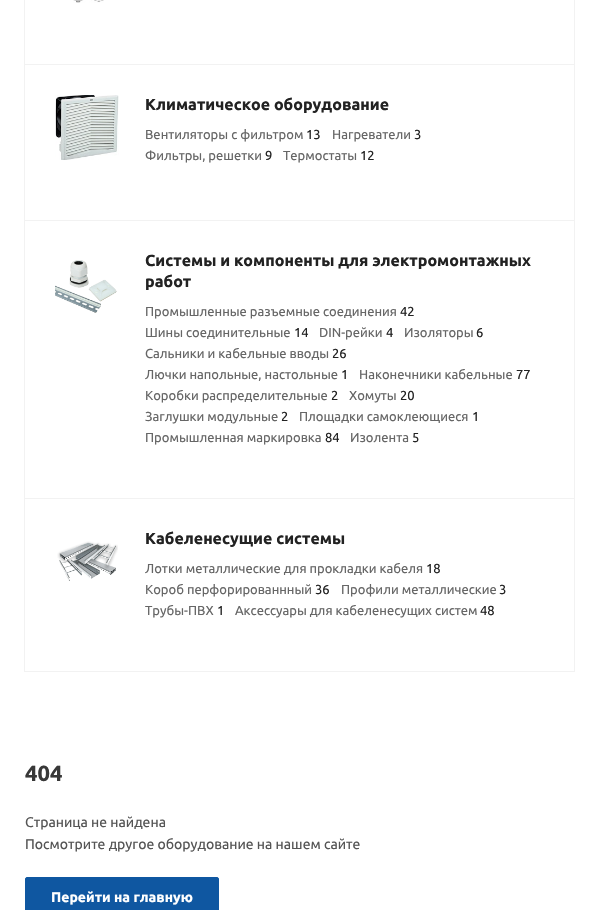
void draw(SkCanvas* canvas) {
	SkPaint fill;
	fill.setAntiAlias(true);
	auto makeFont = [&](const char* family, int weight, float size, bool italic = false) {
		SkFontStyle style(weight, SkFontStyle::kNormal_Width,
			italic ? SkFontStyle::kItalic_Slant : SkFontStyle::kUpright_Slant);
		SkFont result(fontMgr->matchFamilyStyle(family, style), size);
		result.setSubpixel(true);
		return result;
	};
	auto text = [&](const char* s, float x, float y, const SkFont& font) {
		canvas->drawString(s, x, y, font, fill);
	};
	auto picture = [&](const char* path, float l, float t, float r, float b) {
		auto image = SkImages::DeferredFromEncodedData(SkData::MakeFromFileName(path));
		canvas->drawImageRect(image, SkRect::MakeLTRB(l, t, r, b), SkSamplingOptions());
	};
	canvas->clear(0xFFFFFFFF);
	fill.setStyle(SkPaint::kStroke_Style);
	fill.setStrokeWidth(1);
	fill.setColor(0xFFF2F2F2);
	canvas->drawRect(SkRect::MakeLTRB(24.5f, -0.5f, 574.5f, 64.5f), fill);
	picture("image0.png", 73, 0, 104, 3);
	canvas->drawRect(SkRect::MakeLTRB(24.5f, 64.5f, 574.5f, 220.5f), fill);
	picture("image1.png", 55, 95, 119, 160);
	canvas->drawRect(SkRect::MakeLTRB(24.5f, 220.5f, 574.5f, 498.5f), fill);
	picture("image2.png", 55, 260, 117, 313);
	canvas->drawRect(SkRect::MakeLTRB(24.5f, 498.5f, 574.5f, 671.5f), fill);
	picture("image3.png", 57, 541, 118, 581);
	fill.setStyle(SkPaint::kFill_Style);
	fill.setColor(0xFF0F57A1);
	canvas->drawRoundRect(SkRect::MakeLTRB(25.5f, 877.5f, 218.5f, 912.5f), 1.5f, 1.5f, fill);
	fill.setStyle(SkPaint::kStroke_Style);
	canvas->drawRoundRect(SkRect::MakeLTRB(25.5f, 877.5f, 218.5f, 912.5f), 1.5f, 1.5f, fill);
	auto font1 = makeFont("Ubuntu", 700, 16);
	fill.setStyle(SkPaint::kFill_Style);
	fill.setColor(0xFF222222);
	text("Климатическое оборудование", 145, 110, font1);
	auto font2 = makeFont("Ubuntu", 400, 13);
	fill.setColor(0xFF666666);
	text("Вентиляторы с фильтром", 145, 139, font2);
	fill.setColor(0xFF222222);
	text("13", 306, 139, font2);
	fill.setColor(0xFF666666);
	text("Нагреватели", 332, 139, font2);
	fill.setColor(0xFF222222);
	text("3", 414, 139, font2);
	fill.setColor(0xFF666666);
	text("Фильтры, решетки", 145, 160, font2);
	fill.setColor(0xFF222222);
	text("9", 265, 160, font2);
	fill.setColor(0xFF666666);
	text("Термостаты", 283, 160, font2);
	fill.setColor(0xFF222222);
	text("12", 360, 160, font2);
	text("Системы и компоненты для электромонтажных", 145, 266, font1);
	text("работ", 145, 287, font1);
	fill.setColor(0xFF666666);
	text("Промышленные разъемные соединения", 145, 316, font2);
	fill.setColor(0xFF222222);
	text("42", 400, 316, font2);
	fill.setColor(0xFF666666);
	text("Шины соединительные", 145, 337, font2);
	fill.setColor(0xFF222222);
	text("14", 294, 337, font2);
	fill.setColor(0xFF666666);
	text("DIN-рейки", 319, 337, font2);
	fill.setColor(0xFF222222);
	text("4", 386, 337, font2);
	fill.setColor(0xFF666666);
	text("Изоляторы", 404, 337, font2);
	fill.setColor(0xFF222222);
	text("6", 476, 337, font2);
	fill.setColor(0xFF666666);
	text("Сальники и кабельные вводы", 145, 358, font2);
	fill.setColor(0xFF222222);
	text("26", 332, 358, font2);
	fill.setColor(0xFF666666);
	text("Лючки напольные, настольные", 145, 379, font2);
	fill.setColor(0xFF222222);
	text("1", 341, 379, font2);
	fill.setColor(0xFF666666);
	text("Наконечники кабельные", 359, 379, font2);
	fill.setColor(0xFF222222);
	text("77", 516, 379, font2);
	fill.setColor(0xFF666666);
	text("Коробки распределительные", 145, 400, font2);
	fill.setColor(0xFF222222);
	text("2", 331, 400, font2);
	fill.setColor(0xFF666666);
	text("Хомуты", 349, 400, font2);
	fill.setColor(0xFF222222);
	text("20", 400, 400, font2);
	fill.setColor(0xFF666666);
	text("Заглушки модульные", 145, 421, font2);
	fill.setColor(0xFF222222);
	text("2", 281, 421, font2);
	fill.setColor(0xFF666666);
	text("Площадки самоклеющиеся", 299, 421, font2);
	fill.setColor(0xFF222222);
	text("1", 472, 421, font2);
	fill.setColor(0xFF666666);
	text("Промышленная маркировка", 145, 442, font2);
	fill.setColor(0xFF222222);
	text("84", 325, 442, font2);
	fill.setColor(0xFF666666);
	text("Изолента", 350, 442, font2);
	fill.setColor(0xFF222222);
	text("5", 412, 442, font2);
	text("Кабеленесущие системы", 145, 544, font1);
	fill.setColor(0xFF666666);
	text("Лотки металлические для прокладки кабеля", 145, 573, font2);
	fill.setColor(0xFF222222);
	text("18", 426, 573, font2);
	fill.setColor(0xFF666666);
	text("Короб перфорированнный", 145, 594, font2);
	fill.setColor(0xFF222222);
	text("36", 315, 594, font2);
	fill.setColor(0xFF666666);
	text("Профили металлические", 341, 594, font2);
	fill.setColor(0xFF222222);
	text("3", 499, 594, font2);
	fill.setColor(0xFF666666);
	text("Трубы-ПВХ", 145, 615, font2);
	fill.setColor(0xFF222222);
	text("1", 217, 615, font2);
	fill.setColor(0xFF666666);
	text("Аксессуары для кабеленесущих систем", 235, 615, font2);
	fill.setColor(0xFF222222);
	text("48", 480, 615, font2);
	auto font3 = makeFont("Ubuntu", 700, 22);
	fill.setColor(0xFF383838);
	text("404", 25, 781, font3);
	auto font4 = makeFont("Ubuntu", 400, 14);
	fill.setColor(0xFF555555);
	text("Страница не найдена", 25, 827, font4);
	text("Посмотрите другое оборудование на нашем сайте", 25, 849, font4);
	auto font5 = makeFont("Ubuntu", 700, 14);
	fill.setColor(0xFFFFFFFF);
	text("Перейти на главную", 51, 902, font5);
}
